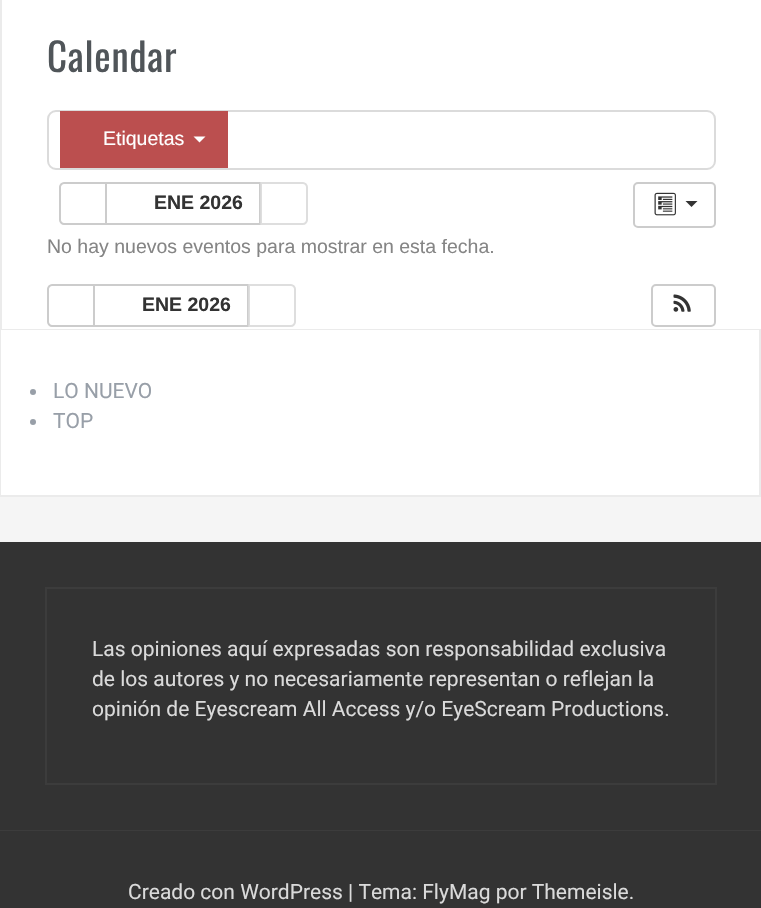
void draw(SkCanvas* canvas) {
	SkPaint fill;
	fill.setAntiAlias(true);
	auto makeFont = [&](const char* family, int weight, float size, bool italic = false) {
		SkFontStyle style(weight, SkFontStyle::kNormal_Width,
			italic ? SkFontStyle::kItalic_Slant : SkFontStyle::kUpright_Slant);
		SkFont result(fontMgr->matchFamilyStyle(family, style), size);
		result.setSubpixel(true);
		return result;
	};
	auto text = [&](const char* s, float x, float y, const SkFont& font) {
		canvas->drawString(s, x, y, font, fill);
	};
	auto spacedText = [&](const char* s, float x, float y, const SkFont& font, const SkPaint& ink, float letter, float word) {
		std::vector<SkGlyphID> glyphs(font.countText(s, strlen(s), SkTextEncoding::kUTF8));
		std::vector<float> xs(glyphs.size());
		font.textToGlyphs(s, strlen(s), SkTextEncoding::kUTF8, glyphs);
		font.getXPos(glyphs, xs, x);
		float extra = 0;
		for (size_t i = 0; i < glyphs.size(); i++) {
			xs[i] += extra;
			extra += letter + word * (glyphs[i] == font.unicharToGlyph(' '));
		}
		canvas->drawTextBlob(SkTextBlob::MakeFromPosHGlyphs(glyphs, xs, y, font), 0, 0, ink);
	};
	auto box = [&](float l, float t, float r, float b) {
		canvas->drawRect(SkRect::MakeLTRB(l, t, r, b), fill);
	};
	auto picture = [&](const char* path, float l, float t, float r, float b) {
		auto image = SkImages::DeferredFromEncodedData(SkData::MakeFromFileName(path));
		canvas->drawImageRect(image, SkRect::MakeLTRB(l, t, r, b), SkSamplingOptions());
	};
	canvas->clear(0xFFF5F5F5);
	fill.setColor(0xFFFFFFFF);
	box(2, 0, 761, 329);
	fill.setColor(0xFFEBEBEB);
	box(0, 329, 761, 330);
	box(0, 0, 2, 330);
	fill.setStyle(SkPaint::kStroke_Style);
	fill.setStrokeWidth(2);
	fill.setColor(0xFFDBDBDB);
	canvas->drawRoundRect(SkRect::MakeLTRB(48, 111, 715, 169), 8, 8, fill);
	fill.setStyle(SkPaint::kFill_Style);
	fill.setColor(0xFFBB4F4F);
	box(60, 111, 228, 168);
	fill.setColor(0xFFFFFFFF);
	canvas->drawPath(SkPathBuilder().moveTo(193.5f, 136.5f).lineTo(205.5f, 136.5f).lineTo(199.5f, 142.5f).close().detach(), fill);
	fill.setStyle(SkPaint::kStroke_Style);
	fill.setColor(0xFFCCCCCC);
	canvas->drawPath(SkPathBuilder().moveTo(64, 183).lineTo(106, 183).lineTo(106, 224).lineTo(64, 224).cubicTo(62, 224, 60, 222, 60, 220).lineTo(60, 187).cubicTo(60, 185, 62, 183, 64, 183).close().detach(), fill);
	canvas->drawRect(SkRect::MakeLTRB(106, 183, 260, 224), fill);
	fill.setStyle(SkPaint::kFill_Style);
	fill.setColor(0xA6FFFFFF);
	canvas->drawPath(SkPathBuilder().moveTo(260, 182).lineTo(303, 182).cubicTo(306, 182, 308, 184, 308, 187).lineTo(308, 220).cubicTo(308, 223, 306, 225, 303, 225).lineTo(260, 225).close().detach(), fill);
	fill.setStyle(SkPaint::kStroke_Style);
	fill.setColor(0xA6CCCCCC);
	canvas->drawPath(SkPathBuilder().moveTo(261, 183).lineTo(303, 183).cubicTo(305, 183, 307, 185, 307, 187).lineTo(307, 220).cubicTo(307, 222, 305, 224, 303, 224).lineTo(261, 224).close().detach(), fill);
	fill.setColor(0xFFCCCCCC);
	canvas->drawRoundRect(SkRect::MakeLTRB(634, 183, 715, 227), 4, 4, fill);
	picture("image0.png", 654, 192, 676, 216);
	fill.setStyle(SkPaint::kFill_Style);
	fill.setColor(0xFF333333);
	canvas->drawPath(SkPathBuilder().moveTo(685.5f, 201).lineTo(697.5f, 201).lineTo(691.5f, 207).close().detach(), fill);
	fill.setStyle(SkPaint::kStroke_Style);
	fill.setColor(0xFFCCCCCC);
	canvas->drawPath(SkPathBuilder().moveTo(52, 285).lineTo(94, 285).lineTo(94, 326).lineTo(52, 326).cubicTo(50, 326, 48, 324, 48, 322).lineTo(48, 289).cubicTo(48, 287, 50, 285, 52, 285).close().detach(), fill);
	canvas->drawRect(SkRect::MakeLTRB(94, 285, 248, 326), fill);
	fill.setStyle(SkPaint::kFill_Style);
	fill.setColor(0xA6FFFFFF);
	canvas->drawPath(SkPathBuilder().moveTo(248, 284).lineTo(291, 284).cubicTo(294, 284, 296, 286, 296, 289).lineTo(296, 322).cubicTo(296, 325, 294, 327, 291, 327).lineTo(248, 327).close().detach(), fill);
	fill.setStyle(SkPaint::kStroke_Style);
	fill.setColor(0xA6CCCCCC);
	canvas->drawPath(SkPathBuilder().moveTo(249, 285).lineTo(291, 285).cubicTo(293, 285, 295, 287, 295, 289).lineTo(295, 322).cubicTo(295, 324, 293, 326, 291, 326).lineTo(249, 326).close().detach(), fill);
	fill.setColor(0xFFCCCCCC);
	canvas->drawRoundRect(SkRect::MakeLTRB(652, 285, 715, 326), 4, 4, fill);
	picture("image1.png", 673, 294, 691, 312);
	fill.setStyle(SkPaint::kFill_Style);
	fill.setColor(0xFFFFFFFF);
	box(1, 330, 759, 495);
	fill.setColor(0xFFEBEBEB);
	box(759, 330, 761, 497);
	box(0, 495, 761, 497);
	box(0, 330, 1, 497);
	fill.setColor(0xFF989FA8);
	canvas->drawCircle(33, 392, 3, fill);
	canvas->drawCircle(33, 422, 3, fill);
	fill.setColor(0xFF333333);
	box(0, 542, 761, 830);
	fill.setColor(0xFF3C3C3C);
	box(0, 830, 761, 831);
	fill.setStyle(SkPaint::kStroke_Style);
	canvas->drawRect(SkRect::MakeLTRB(46, 588, 716, 784), fill);
	fill.setStyle(SkPaint::kFill_Style);
	fill.setColor(0xFF333333);
	box(0, 831, 761, 908);
	auto font1 = makeFont("Oswald", 400, 39);
	fill.setColor(0xFF505559);
	spacedText("Calendar", 47, 72, font1, fill, 0.75f, 0);
	auto font2 = makeFont("Liberation Sans", 400, 19.5f);
	fill.setColor(0xFFFFFFFF);
	text("Etiquetas", 103, 145, font2);
	auto font3 = makeFont("Liberation Sans", 700, 19.5f);
	fill.setColor(0xFF333333);
	text("ENE 2026", 154, 209, font3);
	fill.setColor(0xFF858585);
	text("No hay nuevos eventos para mostrar en esta fecha.", 47, 253, font2);
	fill.setColor(0xFF333333);
	text("ENE 2026", 142, 311, font3);
	auto font4 = makeFont("Roboto", 400, 21);
	fill.setColor(0xFF989FA8);
	text("LO NUEVO", 53, 398, font4);
	text("TOP", 53, 428, font4);
	fill.setColor(0xFFDADADA);
	text("Las opiniones aquí expresadas son responsabilidad exclusiva", 92, 656, font4);
	text("de los autores y no necesariamente representan o reflejan la", 92, 686, font4);
	text("opinión de Eyescream All Access y/o EyeScream Productions.", 92, 716, font4);
	text("Creado con WordPress | Tema: FlyMag por Themeisle.", 128, 899, font4);
}
